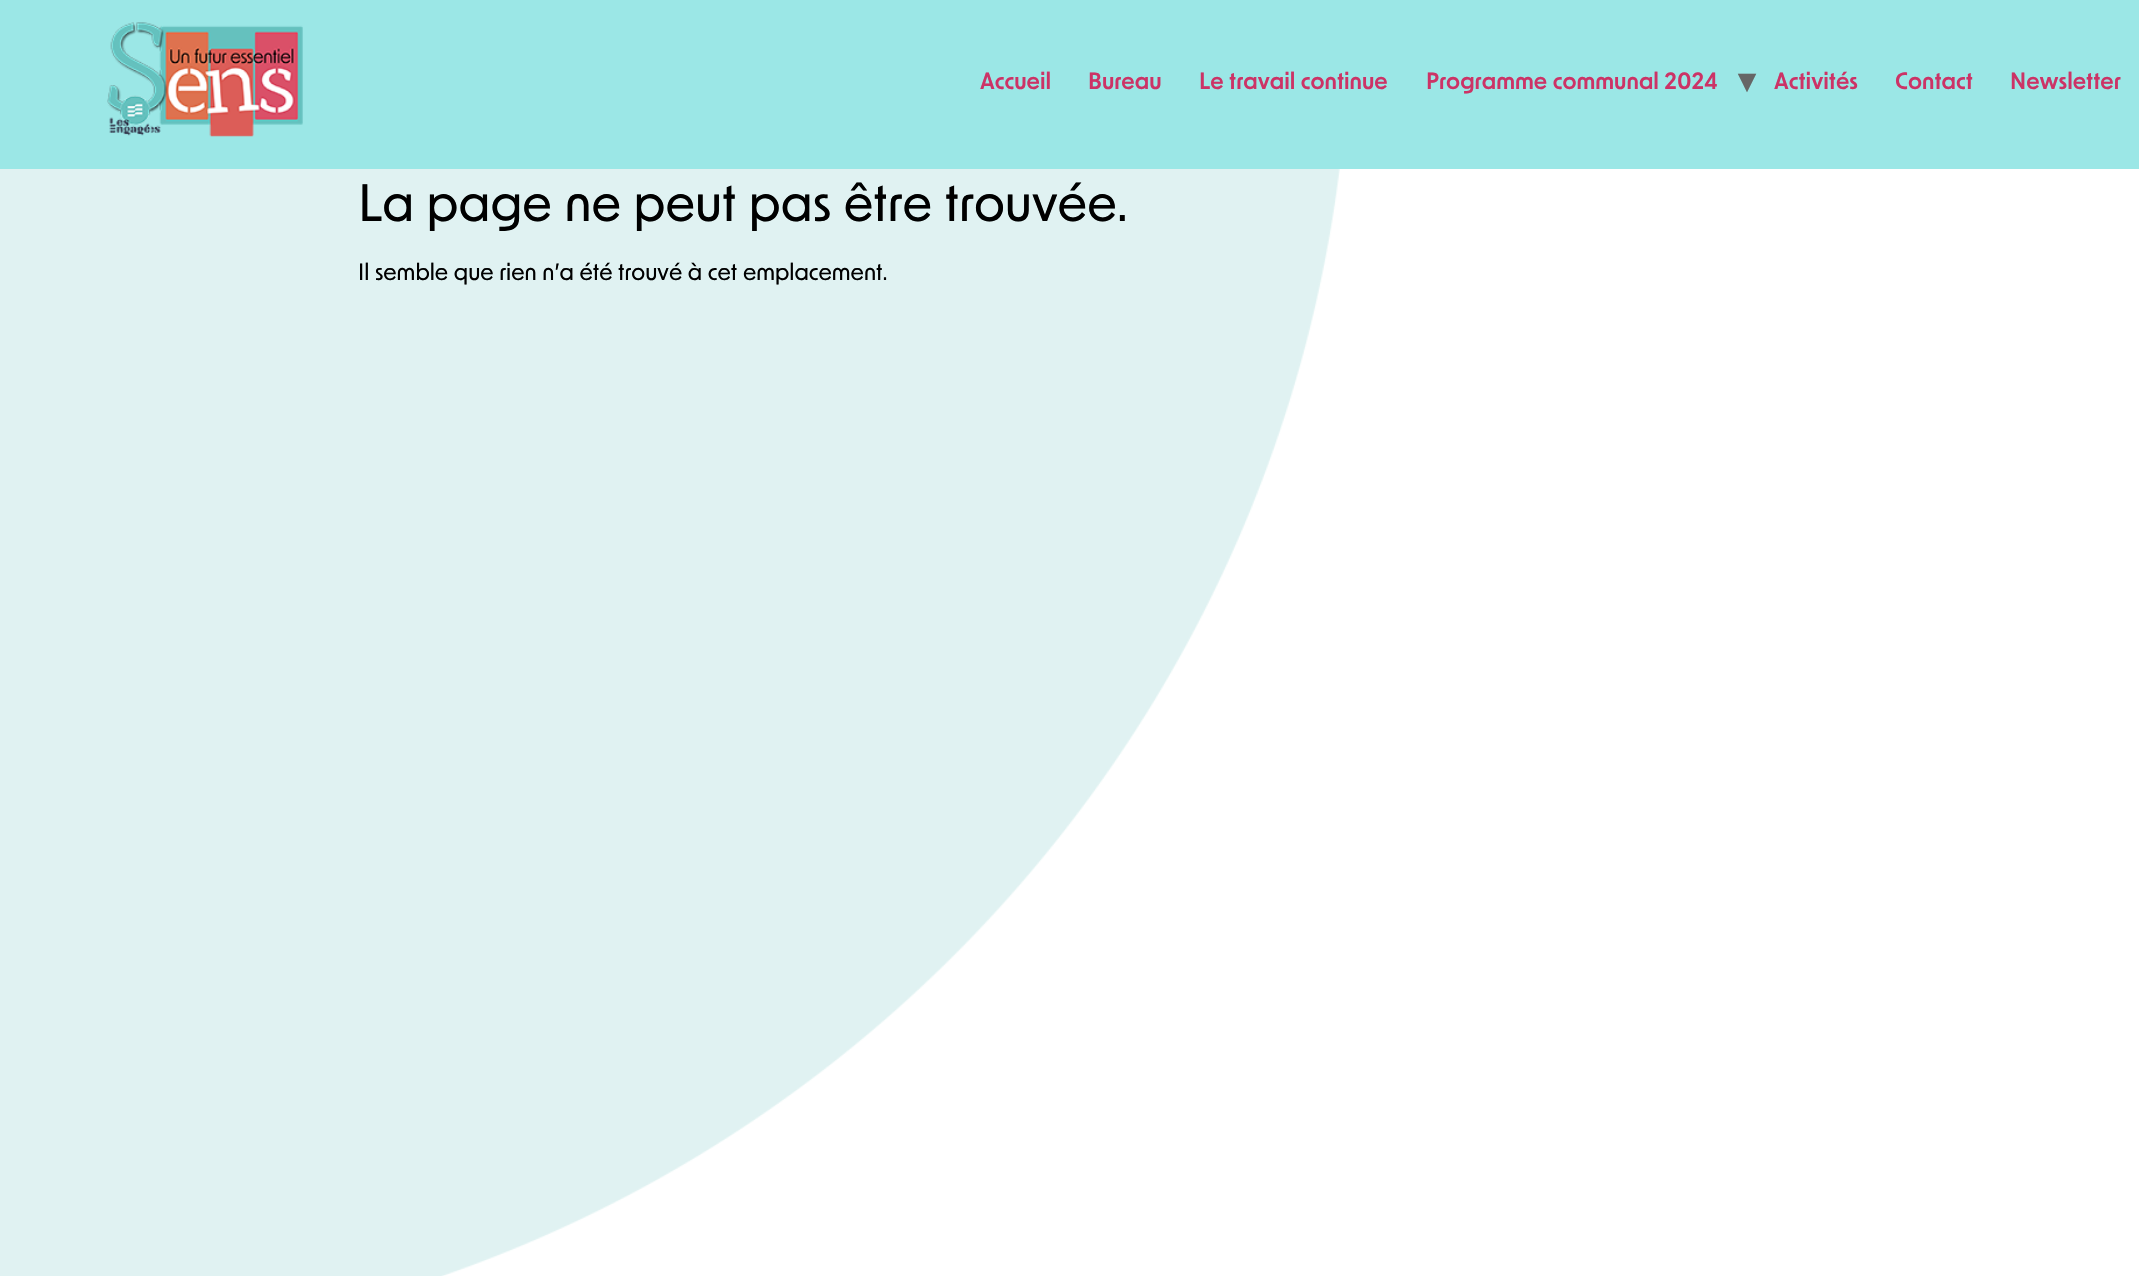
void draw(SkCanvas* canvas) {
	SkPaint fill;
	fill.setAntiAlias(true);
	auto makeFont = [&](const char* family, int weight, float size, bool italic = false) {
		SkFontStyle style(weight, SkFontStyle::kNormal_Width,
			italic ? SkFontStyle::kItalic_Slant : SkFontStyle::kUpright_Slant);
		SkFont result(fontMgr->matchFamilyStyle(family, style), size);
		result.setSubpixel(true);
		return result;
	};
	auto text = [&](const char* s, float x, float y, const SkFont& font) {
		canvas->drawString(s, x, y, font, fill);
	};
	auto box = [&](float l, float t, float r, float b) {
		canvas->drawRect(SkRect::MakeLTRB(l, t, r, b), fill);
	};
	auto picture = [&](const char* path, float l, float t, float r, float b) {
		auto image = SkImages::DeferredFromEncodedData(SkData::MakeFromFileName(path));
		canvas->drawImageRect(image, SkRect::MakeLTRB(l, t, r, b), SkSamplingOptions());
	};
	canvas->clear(0xFFFFFFFF);
	picture("image0.png", 0, 169, 1340, 1276);
	fill.setColor(0xFF9BE7E6);
	box(0, 0, 2139, 169);
	picture("image1.png", 107, 22, 303, 137);
	auto font1 = makeFont("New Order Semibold", 600, 22.5f);
	fill.setColor(0xFFCC3366);
	text("Accueil", 980, 89, font1);
	text("Bureau", 1088, 89, font1);
	text("Le travail continue", 1199, 89, font1);
	text("Programme communal 2024", 1426, 89, font1);
	auto font2 = makeFont("DejaVu Sans", 700, 34);
	fill.setColor(0xFF666666);
	text("▾", 1738, 92, font2);
	fill.setColor(0xFFCC3366);
	text("Activités", 1774, 89, font1);
	text("Contact", 1895, 89, font1);
	text("Newsletter", 2010, 89, font1);
	auto font3 = makeFont("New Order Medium", 500, 50);
	fill.setColor(0xFF000000);
	text("La page ne peut pas être trouvée.", 358, 221, font3);
	auto font4 = makeFont("New Order Medium", 500, 22.5f);
	text("Il semble que rien n’a été trouvé à cet emplacement.", 358, 280, font4);
}
